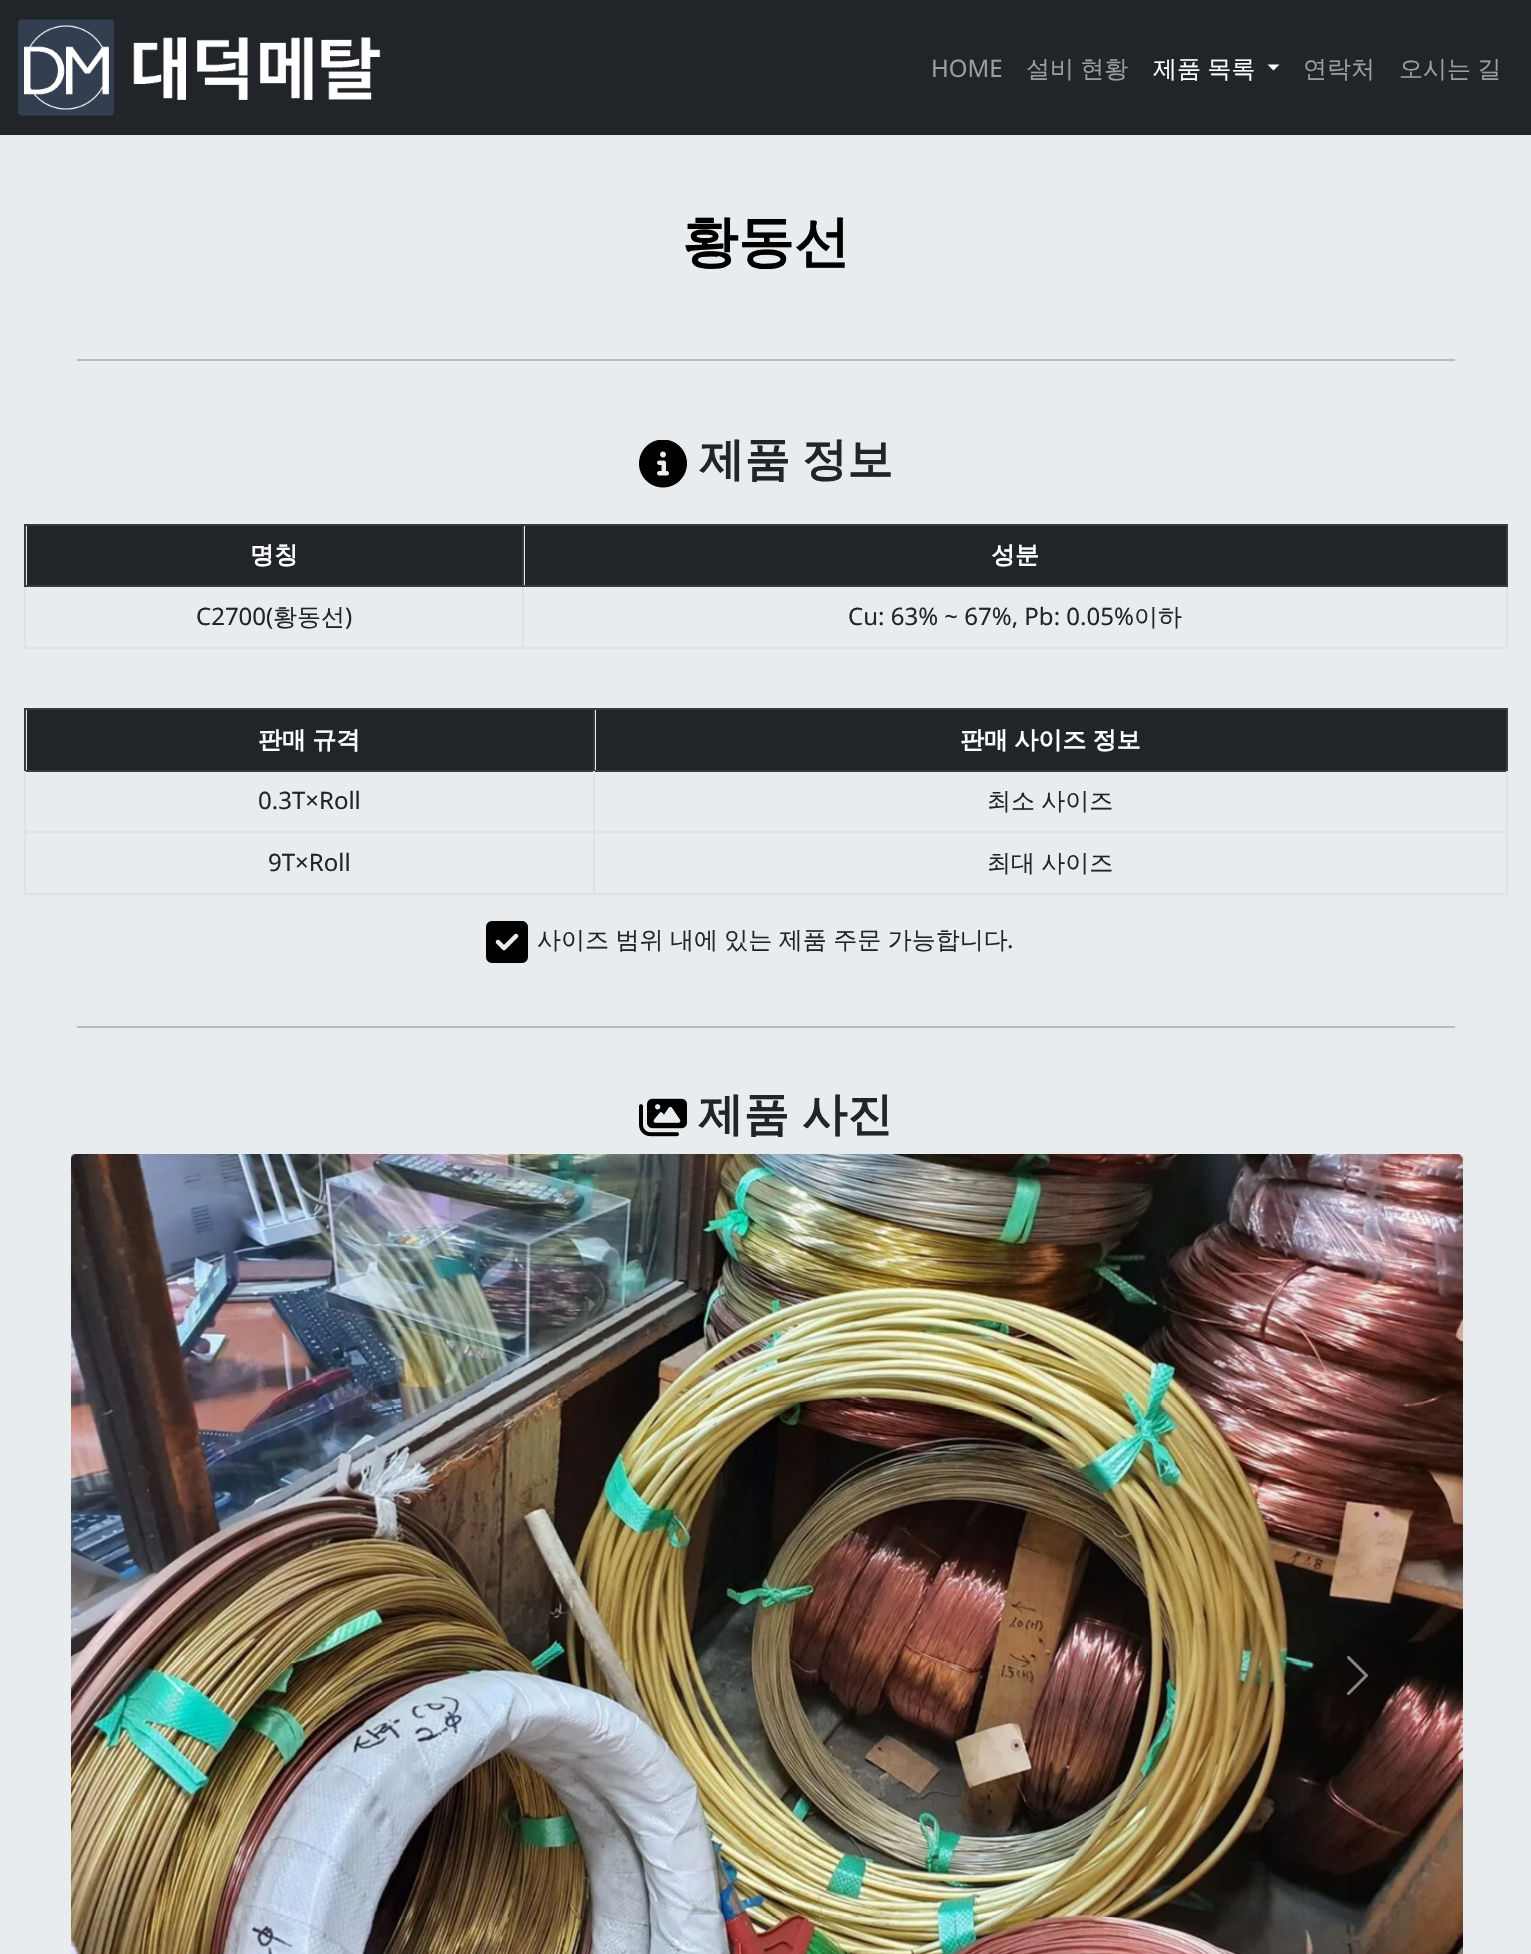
void draw(SkCanvas* canvas) {
	SkPaint fill;
	fill.setAntiAlias(true);
	auto makeFont = [&](const char* family, int weight, float size, bool italic = false) {
		SkFontStyle style(weight, SkFontStyle::kNormal_Width,
			italic ? SkFontStyle::kItalic_Slant : SkFontStyle::kUpright_Slant);
		SkFont result(fontMgr->matchFamilyStyle(family, style), size);
		result.setSubpixel(true);
		return result;
	};
	auto text = [&](const char* s, float x, float y, const SkFont& font) {
		canvas->drawString(s, x, y, font, fill);
	};
	auto spacedText = [&](const char* s, float x, float y, const SkFont& font, const SkPaint& ink, float letter, float word) {
		std::vector<SkGlyphID> glyphs(font.countText(s, strlen(s), SkTextEncoding::kUTF8));
		std::vector<float> xs(glyphs.size());
		font.textToGlyphs(s, strlen(s), SkTextEncoding::kUTF8, glyphs);
		font.getXPos(glyphs, xs, x);
		float extra = 0;
		for (size_t i = 0; i < glyphs.size(); i++) {
			xs[i] += extra;
			extra += letter + word * (glyphs[i] == font.unicharToGlyph(' '));
		}
		canvas->drawTextBlob(SkTextBlob::MakeFromPosHGlyphs(glyphs, xs, y, font), 0, 0, ink);
	};
	auto box = [&](float l, float t, float r, float b) {
		canvas->drawRect(SkRect::MakeLTRB(l, t, r, b), fill);
	};
	auto picture = [&](const char* path, float l, float t, float r, float b) {
		auto image = SkImages::DeferredFromEncodedData(SkData::MakeFromFileName(path));
		canvas->drawImageRect(image, SkRect::MakeLTRB(l, t, r, b), SkSamplingOptions());
	};
	canvas->clear(0xFFE9ECEF);
	fill.setColor(0xFF212529);
	box(0, 0, 1531, 135);
	picture("image0.png", 18, 19, 381, 116);
	fill.setColor(0xFFFFFFFF);
	canvas->drawPath(SkPathBuilder().moveTo(1267.5f, 64.5f).lineTo(1279.5f, 64.5f).lineTo(1273.5f, 70.5f).close().detach(), fill);
	fill.setColor(0xFFB7BABE);
	box(77, 359, 1455, 361);
	picture("image1.png", 639, 440, 687, 488);
	fill.setColor(0xFF373B3E);
	box(24, 524, 1508, 526);
	box(24, 585, 1508, 587);
	fill.setColor(0xFF212529);
	box(27, 526, 522, 585);
	fill.setColor(0xFFDEE2E6);
	box(24, 647, 1508, 649);
	box(24, 585, 26, 648);
	fill.setColor(0xFF373B3E);
	box(24, 524, 26, 587);
	fill.setColor(0xFF212529);
	box(525, 526, 1506, 585);
	fill.setColor(0xFFDEE2E6);
	box(1506, 585, 1508, 648);
	fill.setColor(0xFF373B3E);
	box(1506, 524, 1508, 587);
	fill.setColor(0xFFDEE2E6);
	box(522, 585, 524, 648);
	fill.setColor(0xFF373B3E);
	box(522, 524, 524, 587);
	box(24, 708, 1508, 710);
	box(24, 770, 1508, 772);
	fill.setColor(0xFF212529);
	box(27, 710, 593, 770);
	fill.setColor(0xFFDEE2E6);
	box(24, 831, 1508, 833);
	box(24, 893, 1508, 895);
	box(24, 770, 26, 894);
	fill.setColor(0xFF373B3E);
	box(24, 708, 26, 771);
	fill.setColor(0xFF212529);
	box(596, 710, 1506, 770);
	fill.setColor(0xFFDEE2E6);
	box(1506, 770, 1508, 894);
	fill.setColor(0xFF373B3E);
	box(1506, 708, 1508, 771);
	fill.setColor(0xFFDEE2E6);
	box(593, 770, 595, 894);
	fill.setColor(0xFF373B3E);
	box(593, 708, 595, 771);
	picture("image2.png", 486, 921, 528, 963);
	fill.setColor(0xFFB7BABE);
	box(77, 1026, 1455, 1028);
	picture("image3.png", 639, 1098, 687, 1137);
	picture("image4.png", 71, 1154, 1463, 1954);
	picture("image5.png", 163, 1656, 185, 1695);
	picture("image6.png", 1347, 1656, 1368, 1695);
	auto font1 = makeFont("Noto Sans", 400, 24);
	fill.setColor(0xFF9B9D9F);
	text("HOME", 931, 77, font1);
	auto font2 = makeFont("WenQuanYi Zen Hei", 500, 24);
	spacedText("설비 현황", 1026, 77, font2, fill, 0, -1);
	fill.setColor(0xFFFFFFFF);
	spacedText("제품 목록", 1153, 77, font2, fill, 0, -1);
	fill.setColor(0xFF9B9D9F);
	text("연락처", 1303, 77, font2);
	spacedText("오시는 길", 1399, 77, font2, fill, 0, -1);
	auto font3 = makeFont("WenQuanYi Zen Hei", 700, 56);
	fill.setColor(0xFF000000);
	text("황동선", 682, 261, font3);
	auto font4 = makeFont("WenQuanYi Zen Hei", 700, 45.5f);
	fill.setColor(0xFF212529);
	spacedText("제품 정보", 699, 475, font4, fill, 0, -2);
	auto font5 = makeFont("WenQuanYi Zen Hei", 700, 24);
	fill.setColor(0xFFFFFFFF);
	text("명칭", 250, 563, font5);
	text("성분", 991, 563, font5);
	fill.setColor(0xFF212529);
	text("C2700(", 196, 625, font1);
	text("황동선", 273, 625, font2);
	text(")", 345, 625, font1);
	text("Cu: 63% ~ 67%, Pb: 0.05%", 848, 625, font1);
	text("이하", 1134, 625, font2);
	fill.setColor(0xFFFFFFFF);
	spacedText("판매 규격", 258, 748, font5, fill, 0, -1);
	spacedText("판매 사이즈 정보", 960, 748, font5, fill, 0, -1);
	fill.setColor(0xFF212529);
	text("0.3T×Roll", 258, 809, font1);
	spacedText("최소 사이즈", 987, 809, font2, fill, 0, -1);
	text("9T×Roll", 268, 871, font1);
	spacedText("최대 사이즈", 987, 871, font2, fill, 0, -1);
	spacedText("사이즈 범위 내에 있는 제품 주문 가능합니다", 537, 948, font2, fill, 0, -0.75f);
	text(".", 1007, 948, font1);
	spacedText("제품 사진", 698, 1130, font4, fill, 0, -1);
}
